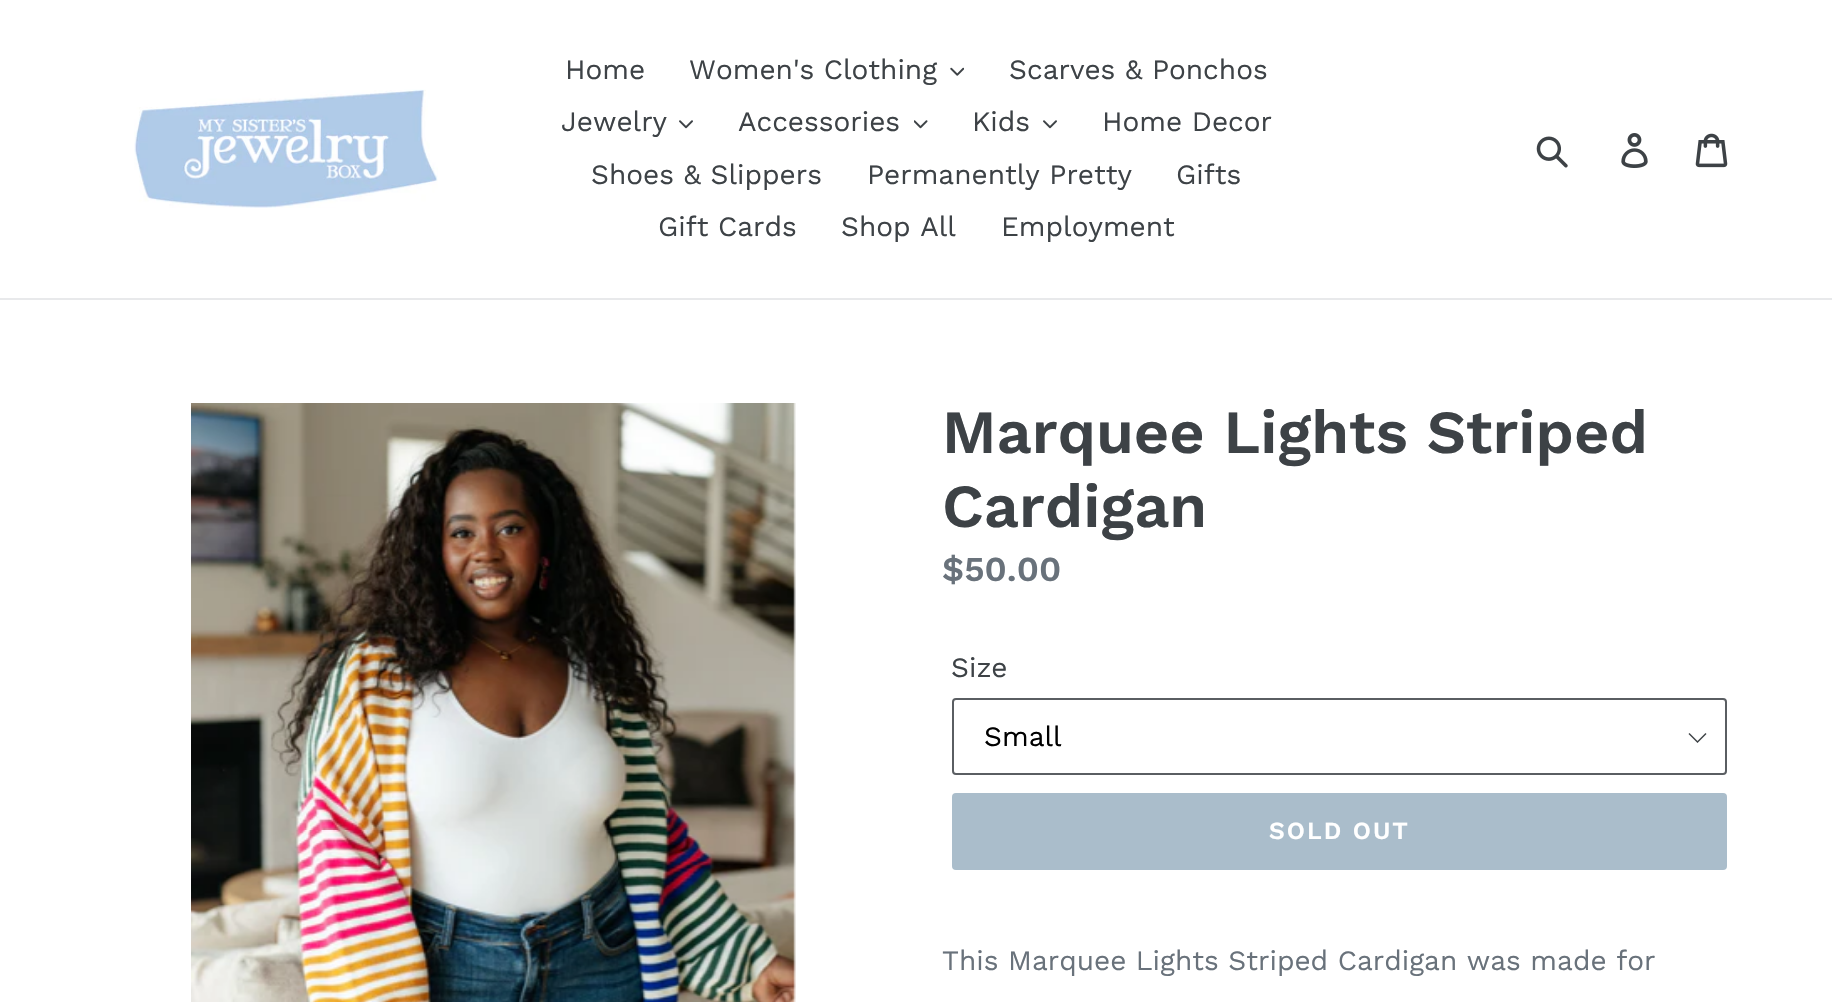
void draw(SkCanvas* canvas) {
	SkPaint fill;
	fill.setAntiAlias(true);
	auto makeFont = [&](const char* family, int weight, float size, bool italic = false) {
		SkFontStyle style(weight, SkFontStyle::kNormal_Width,
			italic ? SkFontStyle::kItalic_Slant : SkFontStyle::kUpright_Slant);
		SkFont result(fontMgr->matchFamilyStyle(family, style), size);
		result.setSubpixel(true);
		return result;
	};
	auto text = [&](const char* s, float x, float y, const SkFont& font) {
		canvas->drawString(s, x, y, font, fill);
	};
	auto spacedText = [&](const char* s, float x, float y, const SkFont& font, const SkPaint& ink, float letter, float word) {
		std::vector<SkGlyphID> glyphs(font.countText(s, strlen(s), SkTextEncoding::kUTF8));
		std::vector<float> xs(glyphs.size());
		font.textToGlyphs(s, strlen(s), SkTextEncoding::kUTF8, glyphs);
		font.getXPos(glyphs, xs, x);
		float extra = 0;
		for (size_t i = 0; i < glyphs.size(); i++) {
			xs[i] += extra;
			extra += letter + word * (glyphs[i] == font.unicharToGlyph(' '));
		}
		canvas->drawTextBlob(SkTextBlob::MakeFromPosHGlyphs(glyphs, xs, y, font), 0, 0, ink);
	};
	auto box = [&](float l, float t, float r, float b) {
		canvas->drawRect(SkRect::MakeLTRB(l, t, r, b), fill);
	};
	auto roundBox = [&](float l, float t, float r, float b, float radius) {
		canvas->drawRoundRect(SkRect::MakeLTRB(l, t, r, b), radius, radius, fill);
	};
	auto picture = [&](const char* path, float l, float t, float r, float b) {
		auto image = SkImages::DeferredFromEncodedData(SkData::MakeFromFileName(path));
		canvas->drawImageRect(image, SkRect::MakeLTRB(l, t, r, b), SkSamplingOptions());
	};
	canvas->clear(0xFFFFFFFF);
	fill.setColor(0xFFE8E9EB);
	box(0, 298, 1832, 300);
	picture("image0.png", 134, 89, 438, 208);
	picture("image1.png", 950, 67, 964, 76);
	picture("image2.png", 679, 120, 693, 129);
	picture("image3.png", 914, 120, 928, 129);
	picture("image2.png", 1043, 120, 1057, 129);
	picture("image4.png", 1536, 136, 1568, 168);
	picture("image5.png", 1621, 133, 1648, 168);
	picture("image6.png", 1695, 133, 1728, 168);
	picture("image7.png", 191, 403, 796, 1002);
	fill.setColor(0xFF3D4246);
	canvas->drawPath(SkPathBuilder().moveTo(1697.5f, 743).lineTo(1688.5f, 734).lineTo(1689.5f, 733).lineTo(1697.5f, 741).lineTo(1705.5f, 733).lineTo(1706.5f, 734).close().detach(), fill);
	fill.setStyle(SkPaint::kStroke_Style);
	fill.setStrokeWidth(2);
	fill.setColor(0xFF5A5E62);
	canvas->drawRoundRect(SkRect::MakeLTRB(953, 699, 1726, 774), 3, 3, fill);
	fill.setStyle(SkPaint::kFill_Style);
	fill.setColor(0xFFAABDCB);
	roundBox(952, 793, 1727, 870, 4);
	auto font1 = makeFont("Work Sans", 400, 28);
	fill.setColor(0xFF3D4246);
	text("Home", 565, 79, font1);
	text("Women's Clothing", 689, 79, font1);
	text("Scarves & Ponchos", 1009, 79, font1);
	text("Jewelry", 561, 131, font1);
	text("Accessories", 738, 131, font1);
	text("Kids", 972, 131, font1);
	text("Home Decor", 1102, 131, font1);
	text("Shoes & Slippers", 591, 184, font1);
	text("Permanently Pretty", 867, 184, font1);
	text("Gifts", 1176, 184, font1);
	text("Gift Cards", 658, 236, font1);
	text("Shop All", 841, 236, font1);
	text("Employment", 1001, 236, font1);
	auto font2 = makeFont("Work Sans", 600, 61.25f);
	text("Marquee Lights Striped", 942, 453, font2);
	text("Cardigan", 942, 527, font2);
	auto font3 = makeFont("Work Sans", 600, 35);
	fill.setColor(0xFF69727B);
	text("$50.00", 942, 581, font3);
	fill.setColor(0xFF3D4246);
	text("Size", 951, 677, font1);
	fill.setColor(0xFF000000);
	text("Small", 984, 746, font1);
	auto font4 = makeFont("Work Sans", 600, 24.5f);
	fill.setColor(0xFFFFFFFF);
	spacedText("SOLD OUT", 1269, 839, font4, fill, 2, 0);
	fill.setColor(0xFF69727B);
	text("This Marquee Lights Striped Cardigan was made for", 942, 970, font1);
}
